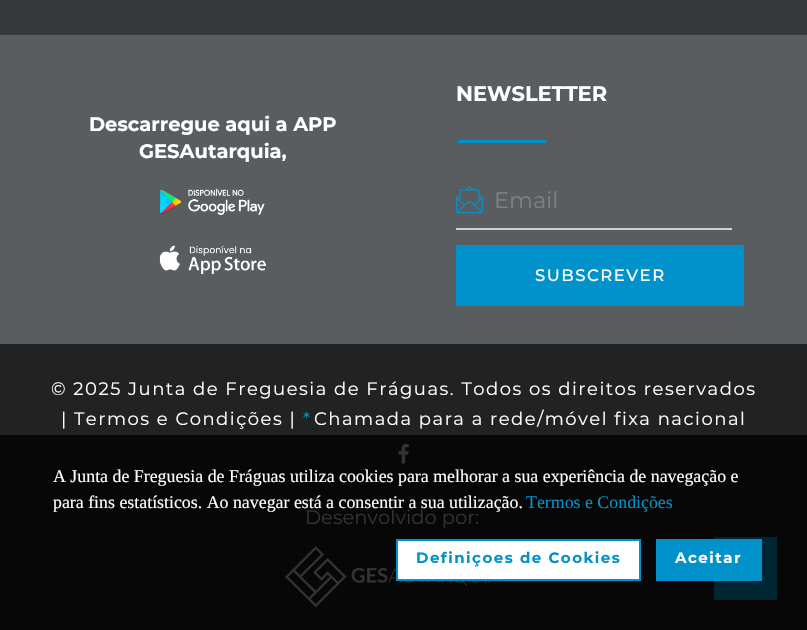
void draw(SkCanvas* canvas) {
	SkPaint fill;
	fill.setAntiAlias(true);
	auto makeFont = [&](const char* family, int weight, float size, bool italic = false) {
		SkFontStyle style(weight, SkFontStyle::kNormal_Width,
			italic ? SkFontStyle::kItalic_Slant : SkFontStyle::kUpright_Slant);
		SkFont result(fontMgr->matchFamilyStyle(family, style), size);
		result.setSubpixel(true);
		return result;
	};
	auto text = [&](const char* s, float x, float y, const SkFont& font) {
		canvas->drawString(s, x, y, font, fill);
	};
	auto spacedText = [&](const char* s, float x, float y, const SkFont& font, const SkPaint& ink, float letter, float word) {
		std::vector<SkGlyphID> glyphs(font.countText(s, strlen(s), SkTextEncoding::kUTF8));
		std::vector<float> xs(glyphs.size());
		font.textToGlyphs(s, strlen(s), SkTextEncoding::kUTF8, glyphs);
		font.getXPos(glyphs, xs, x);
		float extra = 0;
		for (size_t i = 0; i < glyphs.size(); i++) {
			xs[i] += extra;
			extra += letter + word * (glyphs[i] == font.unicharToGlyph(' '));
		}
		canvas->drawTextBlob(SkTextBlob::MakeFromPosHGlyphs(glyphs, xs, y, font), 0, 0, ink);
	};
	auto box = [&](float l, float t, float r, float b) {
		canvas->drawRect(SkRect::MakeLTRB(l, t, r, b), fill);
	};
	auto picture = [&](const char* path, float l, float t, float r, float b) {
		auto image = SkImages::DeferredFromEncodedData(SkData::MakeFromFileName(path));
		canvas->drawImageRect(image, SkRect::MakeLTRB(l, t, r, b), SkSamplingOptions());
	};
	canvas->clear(0xFF5A5D5F);
	fill.setColor(0xFF363839);
	box(0, 0, 807, 35);
	picture("image0.png", 160, 188, 265, 215);
	picture("image1.png", 159, 245, 266, 274);
	fill.setColor(0xFF0292CB);
	box(458, 140, 546, 143);
	picture("image2.png", 456, 186, 483, 214);
	fill.setColor(0xFFD0D0D0);
	box(456, 228, 732, 230);
	fill.setColor(0xFF0292CB);
	box(456, 245, 744, 306);
	fill.setColor(0xFF222222);
	box(0, 344, 807, 435);
	fill.setColor(0xFF070707);
	box(0, 435, 807, 630);
	picture("image3.png", 398, 444, 409, 464);
	picture("image4.png", 285, 546, 501, 608);
	fill.setColor(0xFFFFFFFF);
	canvas->drawRect(SkRect::MakeLTRB(397, 540, 640, 580), fill);
	fill.setStyle(SkPaint::kStroke_Style);
	fill.setStrokeWidth(2);
	fill.setColor(0xFF0292CB);
	canvas->drawRect(SkRect::MakeLTRB(397, 540, 640, 580), fill);
	fill.setStyle(SkPaint::kFill_Style);
	fill.setColor(0xFF002533);
	box(714, 537, 777, 600);
	fill.setColor(0xFF0292CB);
	box(656, 539, 762, 581);
	auto font1 = makeFont("Montserrat", 700, 19.5f);
	fill.setColor(0xFFFFFFFF);
	text("Descarregue aqui a APP", 89, 131, font1);
	text("GESAutarquia,", 139, 158, font1);
	auto font2 = makeFont("Montserrat", 700, 21);
	text("NEWSLETTER", 456, 101, font2);
	auto font3 = makeFont("Montserrat", 400, 22.5f);
	fill.setColor(0xFF808080);
	text("Email", 494, 208, font3);
	auto font4 = makeFont("Montserrat", 500, 16.5f);
	fill.setColor(0xFFFFFFFF);
	spacedText("SUBSCREVER", 535, 281, font4, fill, 1.5f, 0);
	auto font5 = makeFont("Montserrat", 400, 18);
	spacedText("© 2025 Junta de Freguesia de Fráguas. Todos os direitos reservados", 51, 395, font5, fill, 1.5f, 0);
	spacedText("| Termos e Condições |", 61, 425, font5, fill, 1.5f, 0);
	fill.setColor(0xFF0292CB);
	spacedText("*", 303, 425, font5, fill, 1.5f, 0);
	fill.setColor(0xFFFFFFFF);
	spacedText("Chamada para a rede/móvel fixa nacional", 314, 425, font5, fill, 1.5f, 0);
	auto font6 = makeFont("Montserrat", 400, 19.5f);
	fill.setColor(0xFF333333);
	text("Desenvolvido por:", 305, 524, font6);
	auto font7 = makeFont("Liberation Serif", 400, 17.85f);
	fill.setColor(0xFFFFFFFF);
	text("A Junta de Freguesia de Fráguas utiliza cookies para melhorar a sua experiência de navegação e", 53, 482, font7);
	text("para fins estatísticos. Ao navegar está a consentir a sua utilização.", 53, 508, font7);
	fill.setColor(0xFF0292CB);
	text("Termos e Condições", 526, 508, font7);
	auto font8 = makeFont("Montserrat", 700, 15);
	spacedText("Definiçoes de Cookies", 416, 563, font8, fill, 1.5f, 0);
	fill.setColor(0xFFFFFFFF);
	spacedText("Aceitar", 675, 563, font8, fill, 1.5f, 0);
}
